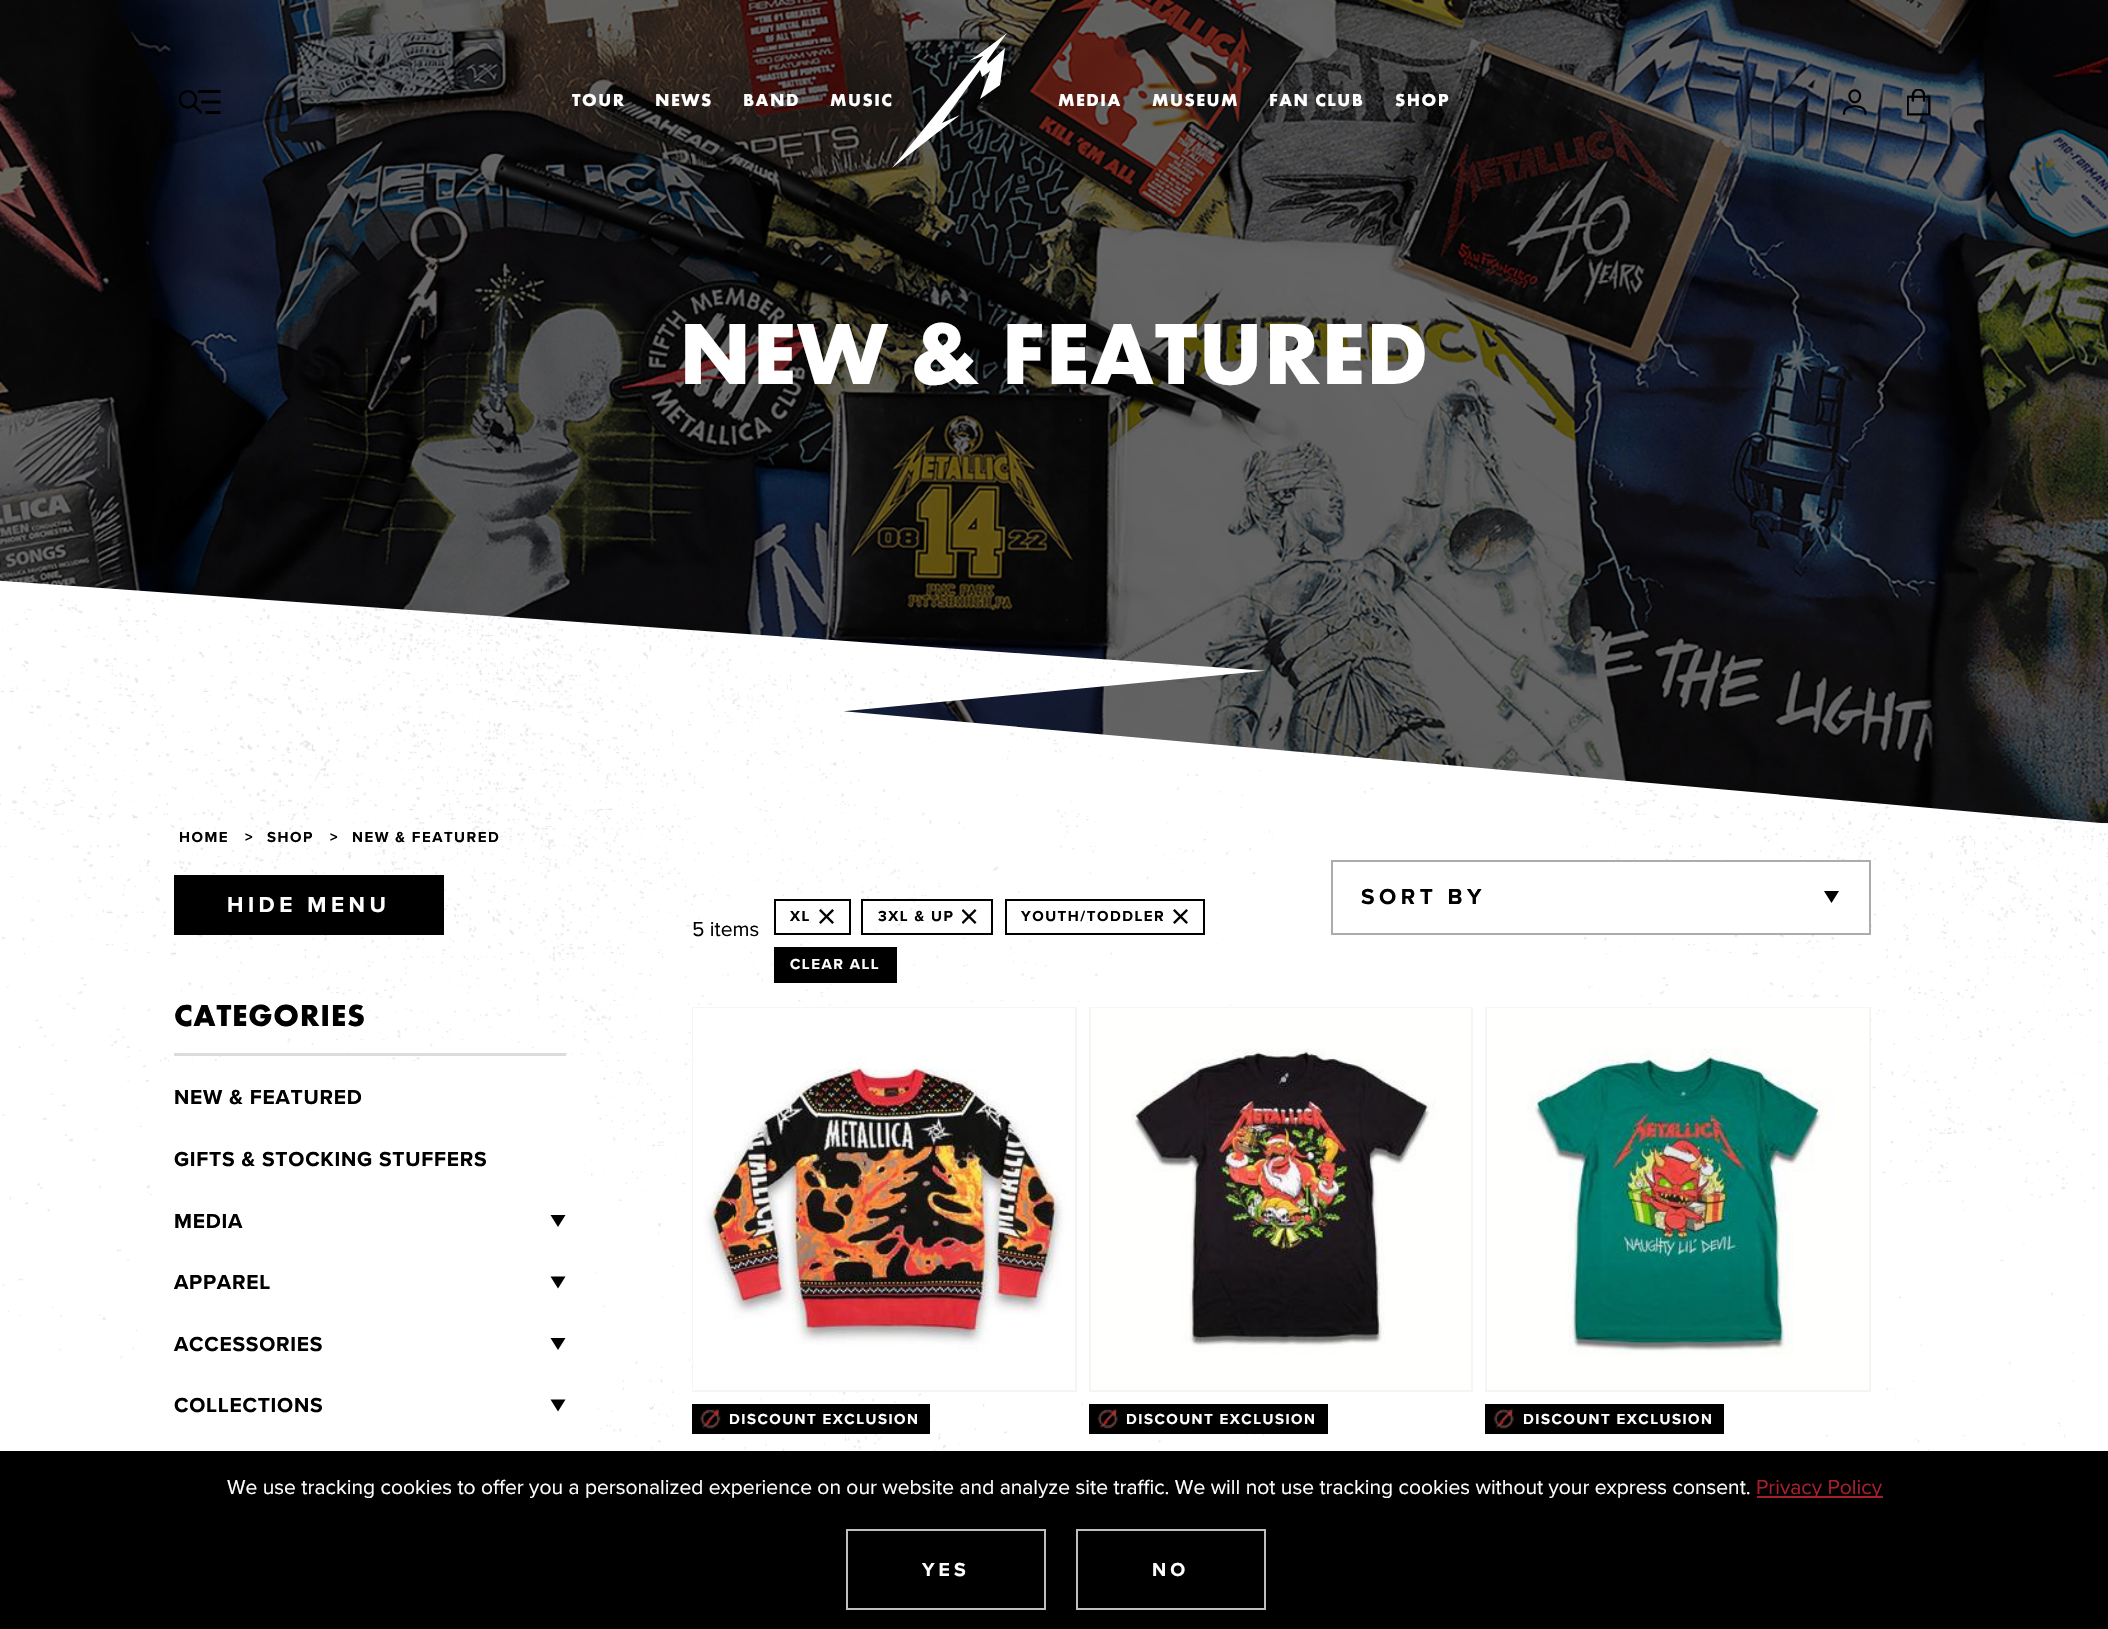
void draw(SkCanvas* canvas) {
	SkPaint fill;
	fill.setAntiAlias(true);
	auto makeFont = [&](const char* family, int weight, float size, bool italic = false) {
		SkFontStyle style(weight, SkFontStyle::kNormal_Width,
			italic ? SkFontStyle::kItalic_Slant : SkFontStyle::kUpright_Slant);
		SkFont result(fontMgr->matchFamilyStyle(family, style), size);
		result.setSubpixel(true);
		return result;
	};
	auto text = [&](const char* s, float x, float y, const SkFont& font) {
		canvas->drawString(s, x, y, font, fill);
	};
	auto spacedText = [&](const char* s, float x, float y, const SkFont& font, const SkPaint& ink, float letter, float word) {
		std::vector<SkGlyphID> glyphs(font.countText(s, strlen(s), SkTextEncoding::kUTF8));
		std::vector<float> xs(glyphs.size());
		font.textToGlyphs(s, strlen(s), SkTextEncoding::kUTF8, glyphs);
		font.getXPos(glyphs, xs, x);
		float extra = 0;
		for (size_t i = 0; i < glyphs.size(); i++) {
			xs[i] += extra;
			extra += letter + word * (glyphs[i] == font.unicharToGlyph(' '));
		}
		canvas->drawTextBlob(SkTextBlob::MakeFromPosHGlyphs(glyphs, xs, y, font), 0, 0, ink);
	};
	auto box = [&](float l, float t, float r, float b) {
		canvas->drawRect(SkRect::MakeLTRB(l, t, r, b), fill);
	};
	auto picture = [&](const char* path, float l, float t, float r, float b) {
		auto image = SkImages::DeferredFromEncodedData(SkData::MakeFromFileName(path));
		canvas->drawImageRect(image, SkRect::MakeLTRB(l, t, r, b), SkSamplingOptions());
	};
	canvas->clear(0xFFFFFFFF);
	picture("image0.png", 0, 580, 2108, 1451);
	picture("image4.png", 0, 0, 2108, 824);
	picture("image1.png", 179, 90, 221, 114);
	fill.setColor(0xFFFFFFFF);
	canvas->drawPath(SkPathBuilder().moveTo(987, 61).lineTo(1007, 33).cubicTo(994, 43, 981, 53, 969, 61).lineTo(983, 56).lineTo(892, 168).lineTo(960, 115).lineTo(942, 123).lineTo(980, 70).lineTo(982, 77).lineTo(990, 71).lineTo(980, 99).lineTo(1000, 85).lineTo(1005, 48).lineTo(988, 64).close().detach(), fill);
	picture("image2.png", 1842, 89, 1867, 115);
	picture("image3.png", 1907, 89, 1931, 116);
	fill.setColor(0xFF000000);
	box(174, 875, 444, 935);
	fill.setColor(0xFFFFFFFF);
	box(174, 995, 366, 1034);
	fill.setColor(0xFFDCDCDC);
	box(174, 1053, 566, 1056);
	fill.setColor(0xFFFFFFFF);
	box(177, 1061, 591, 1451);
	fill.setColor(0xFF000000);
	canvas->drawPath(SkPathBuilder().moveTo(550.5f, 1215).lineTo(565.5f, 1215).lineTo(558, 1227).close().detach(), fill);
	canvas->drawPath(SkPathBuilder().moveTo(550.5f, 1276.5f).lineTo(565.5f, 1276.5f).lineTo(558, 1288.5f).close().detach(), fill);
	canvas->drawPath(SkPathBuilder().moveTo(550.5f, 1338).lineTo(565.5f, 1338).lineTo(558, 1350).close().detach(), fill);
	canvas->drawPath(SkPathBuilder().moveTo(550.5f, 1399.5f).lineTo(565.5f, 1399.5f).lineTo(558, 1411.5f).close().detach(), fill);
	fill.setColor(0xFFFFFFFF);
	box(1351, 862, 1860, 933);
	fill.setStyle(SkPaint::kStroke_Style);
	fill.setStrokeWidth(2);
	fill.setColor(0xFFACACAC);
	canvas->drawRect(SkRect::MakeLTRB(1332, 861, 1870, 934), fill);
	fill.setStyle(SkPaint::kFill_Style);
	fill.setColor(0xFF000000);
	canvas->drawPath(SkPathBuilder().moveTo(1824, 891).lineTo(1839, 891).lineTo(1831.5f, 903).close().detach(), fill);
	fill.setStyle(SkPaint::kStroke_Style);
	canvas->drawRect(SkRect::MakeLTRB(775, 900, 850, 934), fill);
	picture("image5.png", 819, 909, 834, 924);
	canvas->drawRect(SkRect::MakeLTRB(862, 900, 992, 934), fill);
	picture("image6.png", 962, 909, 977, 924);
	canvas->drawRect(SkRect::MakeLTRB(1006, 900, 1204, 934), fill);
	picture("image7.png", 1173, 909, 1188, 924);
	fill.setStyle(SkPaint::kFill_Style);
	box(774, 947, 897, 983);
	fill.setStyle(SkPaint::kStroke_Style);
	fill.setColor(0xFFF6F5F4);
	canvas->drawRect(SkRect::MakeLTRB(693, 1008, 1076, 1391), fill);
	picture("image8.png", 693, 1008, 1075, 1390);
	fill.setStyle(SkPaint::kFill_Style);
	fill.setColor(0xFF000000);
	box(692, 1404, 930, 1434);
	picture("image9.png", 700, 1408, 721, 1429);
	fill.setStyle(SkPaint::kStroke_Style);
	fill.setColor(0xFFF6F5F4);
	canvas->drawRect(SkRect::MakeLTRB(1090, 1008, 1472, 1391), fill);
	picture("image10.png", 1091, 1008, 1471, 1390);
	fill.setStyle(SkPaint::kFill_Style);
	fill.setColor(0xFF000000);
	box(1089, 1404, 1328, 1434);
	picture("image11.png", 1097, 1408, 1118, 1429);
	fill.setStyle(SkPaint::kStroke_Style);
	fill.setColor(0xFFF6F5F4);
	canvas->drawRect(SkRect::MakeLTRB(1486, 1008, 1870, 1391), fill);
	picture("image12.png", 1487, 1008, 1869, 1390);
	fill.setStyle(SkPaint::kFill_Style);
	fill.setColor(0xFF000000);
	box(1485, 1404, 1724, 1434);
	picture("image13.png", 1493, 1408, 1514, 1429);
	box(0, 1451, 2108, 1629);
	fill.setColor(0xFFA71E2D);
	box(1757, 1496, 1883, 1498);
	fill.setStyle(SkPaint::kStroke_Style);
	fill.setColor(0xFFBFBFBF);
	canvas->drawRect(SkRect::MakeLTRB(847, 1530, 1045, 1609), fill);
	canvas->drawRect(SkRect::MakeLTRB(1077, 1530, 1265, 1609), fill);
	auto font1 = makeFont("Futura PT", 700, 18);
	fill.setStyle(SkPaint::kFill_Style);
	fill.setColor(0xFFFFFFFF);
	spacedText("TOUR", 572, 106, font1, fill, 1.5f, 0);
	spacedText("NEWS", 655, 106, font1, fill, 1.5f, 0);
	spacedText("BAND", 743, 106, font1, fill, 1.5f, 0);
	spacedText("MUSIC", 830, 106, font1, fill, 1.5f, 0);
	spacedText("MEDIA", 1058, 106, font1, fill, 1.5f, 0);
	spacedText("MUSEUM", 1152, 106, font1, fill, 1.5f, 0);
	spacedText("FAN CLUB", 1269, 106, font1, fill, 1.5f, 0);
	spacedText("SHOP", 1395, 106, font1, fill, 1.5f, 0);
	auto font2 = makeFont("Futura PT", 700, 90);
	spacedText("NEW & FEATURED", 679, 384, font2, fill, 0.75f, 0);
	auto font3 = makeFont("Proxima Nova", 700, 15);
	fill.setColor(0xFF000000);
	spacedText("HOME", 179, 842, font3, fill, 1.5f, 0);
	spacedText(">", 245, 842, font3, fill, 1.5f, 0);
	spacedText("SHOP", 267, 842, font3, fill, 1.5f, 0);
	spacedText(">", 330, 842, font3, fill, 1.5f, 0);
	spacedText("NEW & FEATURED", 352, 842, font3, fill, 1.5f, 0);
	auto font4 = makeFont("Proxima Nova", 700, 22.5f);
	fill.setColor(0xFFFFFFFF);
	spacedText("HIDE MENU", 227, 912, font4, fill, 4.5f, 0);
	auto font5 = makeFont("Futura PT", 700, 31.5f);
	fill.setColor(0xFF000000);
	spacedText("CATEGORIES", 174, 1026, font5, fill, 0.75f, 0);
	auto font6 = makeFont("Proxima Nova", 700, 21);
	spacedText("NEW & FEATURED", 174, 1104, font6, fill, 0.75f, 0);
	spacedText("GIFTS & STOCKING STUFFERS", 174, 1166, font6, fill, 0.75f, 0);
	spacedText("MEDIA", 174, 1228, font6, fill, 0.75f, 0);
	spacedText("APPAREL", 174, 1289, font6, fill, 0.75f, 0);
	spacedText("ACCESSORIES", 174, 1351, font6, fill, 0.75f, 0);
	spacedText("COLLECTIONS", 174, 1412, font6, fill, 0.75f, 0);
	spacedText("SORT BY", 1361, 904, font4, fill, 4.5f, 0);
	auto font7 = makeFont("Proxima Nova", 400, 21);
	text("5 items", 692, 936, font7);
	spacedText("XL", 790, 921, font3, fill, 1.5f, 0);
	spacedText("3XL & UP", 878, 921, font3, fill, 1.5f, 0);
	spacedText("YOUTH/TODDLER", 1021, 921, font3, fill, 1.5f, 0);
	fill.setColor(0xFFFFFFFF);
	spacedText("CLEAR ALL", 790, 969, font3, fill, 1.5f, 0);
	spacedText("DISCOUNT EXCLUSION", 729, 1424, font3, fill, 1.5f, 0);
	spacedText("DISCOUNT EXCLUSION", 1126, 1424, font3, fill, 1.5f, 0);
	spacedText("DISCOUNT EXCLUSION", 1523, 1424, font3, fill, 1.5f, 0);
	text("We use tracking cookies to offer you a personalized experience on our website and analyze site traffic. We will not use tracking cookies without your express consent.", 227, 1494, font7);
	fill.setColor(0xFFA71E2D);
	text("Privacy Policy", 1756, 1494, font7);
	auto font8 = makeFont("Proxima Nova", 700, 19.5f);
	fill.setColor(0xFFFFFFFF);
	spacedText("YES", 922, 1576, font8, fill, 4, 0);
	spacedText("NO", 1152, 1576, font8, fill, 4, 0);
}
